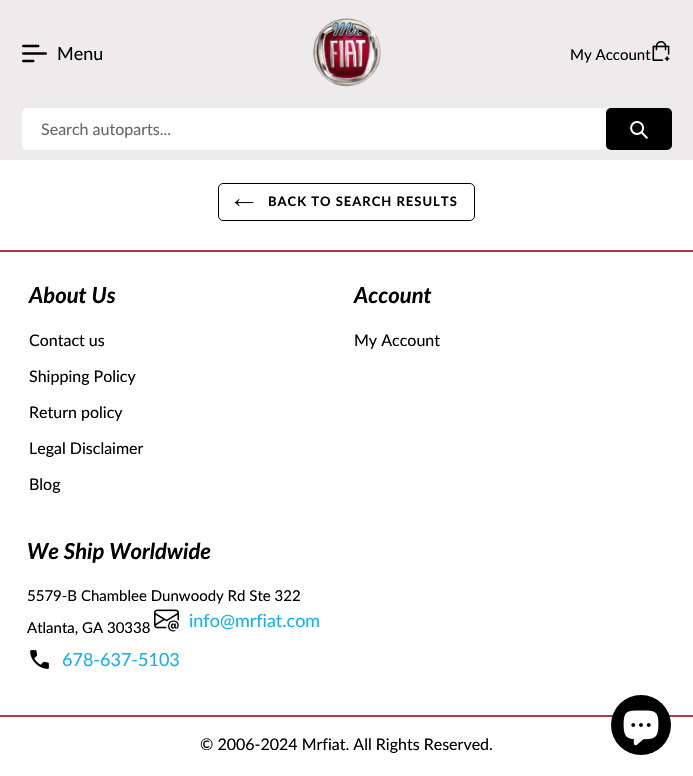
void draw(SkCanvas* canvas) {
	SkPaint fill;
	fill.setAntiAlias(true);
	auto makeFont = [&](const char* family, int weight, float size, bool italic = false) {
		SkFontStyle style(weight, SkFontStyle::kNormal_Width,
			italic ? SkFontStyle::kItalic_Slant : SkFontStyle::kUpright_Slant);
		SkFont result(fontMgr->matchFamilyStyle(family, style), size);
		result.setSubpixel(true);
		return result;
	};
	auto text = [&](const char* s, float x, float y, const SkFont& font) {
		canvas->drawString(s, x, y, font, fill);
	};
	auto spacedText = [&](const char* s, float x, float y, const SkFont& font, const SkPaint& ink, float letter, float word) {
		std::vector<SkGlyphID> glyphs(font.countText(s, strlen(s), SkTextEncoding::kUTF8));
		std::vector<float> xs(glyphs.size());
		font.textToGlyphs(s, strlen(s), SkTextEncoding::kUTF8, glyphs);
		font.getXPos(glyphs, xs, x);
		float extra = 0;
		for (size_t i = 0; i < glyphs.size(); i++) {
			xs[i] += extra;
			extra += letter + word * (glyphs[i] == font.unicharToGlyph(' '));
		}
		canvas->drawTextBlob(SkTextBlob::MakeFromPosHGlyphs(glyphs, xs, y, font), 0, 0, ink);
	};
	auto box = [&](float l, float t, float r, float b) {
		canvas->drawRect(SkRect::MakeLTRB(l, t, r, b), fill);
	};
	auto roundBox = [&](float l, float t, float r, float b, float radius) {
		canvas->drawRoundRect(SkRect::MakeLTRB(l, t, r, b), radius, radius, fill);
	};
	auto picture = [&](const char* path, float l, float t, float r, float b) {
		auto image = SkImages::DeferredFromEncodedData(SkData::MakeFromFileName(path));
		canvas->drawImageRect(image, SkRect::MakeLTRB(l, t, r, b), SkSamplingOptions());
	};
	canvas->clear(0xFFFFFFFF);
	fill.setColor(0xFFEDEBEB);
	box(0, 0, 693, 160);
	picture("image0.png", 22, 44, 47, 63);
	picture("image1.png", 313, 18, 381, 87);
	picture("image2.png", 652, 41, 670, 61);
	fill.setColor(0xFFFFFFFF);
	roundBox(22, 108, 671, 150, 5);
	fill.setColor(0xFF000000);
	roundBox(606, 108, 672, 150, 5);
	picture("image3.png", 630, 121, 648, 139);
	fill.setStyle(SkPaint::kStroke_Style);
	fill.setStrokeWidth(1);
	canvas->drawRoundRect(SkRect::MakeLTRB(218.5f, 183.5f, 474.5f, 220.5f), 4.5f, 4.5f, fill);
	picture("image4.png", 234, 199, 254, 207);
	fill.setStyle(SkPaint::kFill_Style);
	fill.setColor(0xFFA63A45);
	box(0, 250, 693, 252);
	box(0, 715, 693, 717);
	picture("image5.png", 154, 609, 179, 632);
	picture("image6.png", 30, 650, 49, 669);
	fill.setColor(0xFF000000);
	canvas->drawCircle(641, 725, 30, fill);
	picture("image7.png", 623, 710, 659, 746);
	auto font1 = makeFont("Lato", 400, 18);
	text("Menu", 57, 60, font1);
	auto font2 = makeFont("Lato", 400, 15);
	text("My Account", 570, 60, font2);
	auto font3 = makeFont("Lato", 400, 16);
	fill.setColor(0xFF666666);
	text("Search autoparts...", 41, 135, font3);
	auto font4 = makeFont("Lato", 700, 13);
	fill.setColor(0xFF000000);
	spacedText("BACK TO SEARCH RESULTS", 268, 206, font4, fill, 1, 0);
	auto font5 = makeFont("Lato", 700, 22, true);
	text("About Us", 29, 303, font5);
	text("Contact us", 29, 346, font3);
	text("Shipping Policy", 29, 382, font3);
	text("Return policy", 29, 418, font3);
	text("Legal Disclaimer", 29, 454, font3);
	text("Blog", 29, 490, font3);
	text("Account", 354, 303, font5);
	text("My Account", 354, 346, font3);
	text("We Ship Worldwide", 27, 559, font5);
	text("5579-B Chamblee Dunwoody Rd Ste 322", 27, 601, font2);
	text("Atlanta, GA 30338", 27, 633, font2);
	fill.setColor(0xFF17B0EF);
	text("info@mrfiat.com", 189, 627, font1);
	text("678-637-5103", 62, 666, font1);
	fill.setColor(0xFF000000);
	text("© 2006-2024 Mrfiat. All Rights Reserved.", 200, 750, font3);
}
